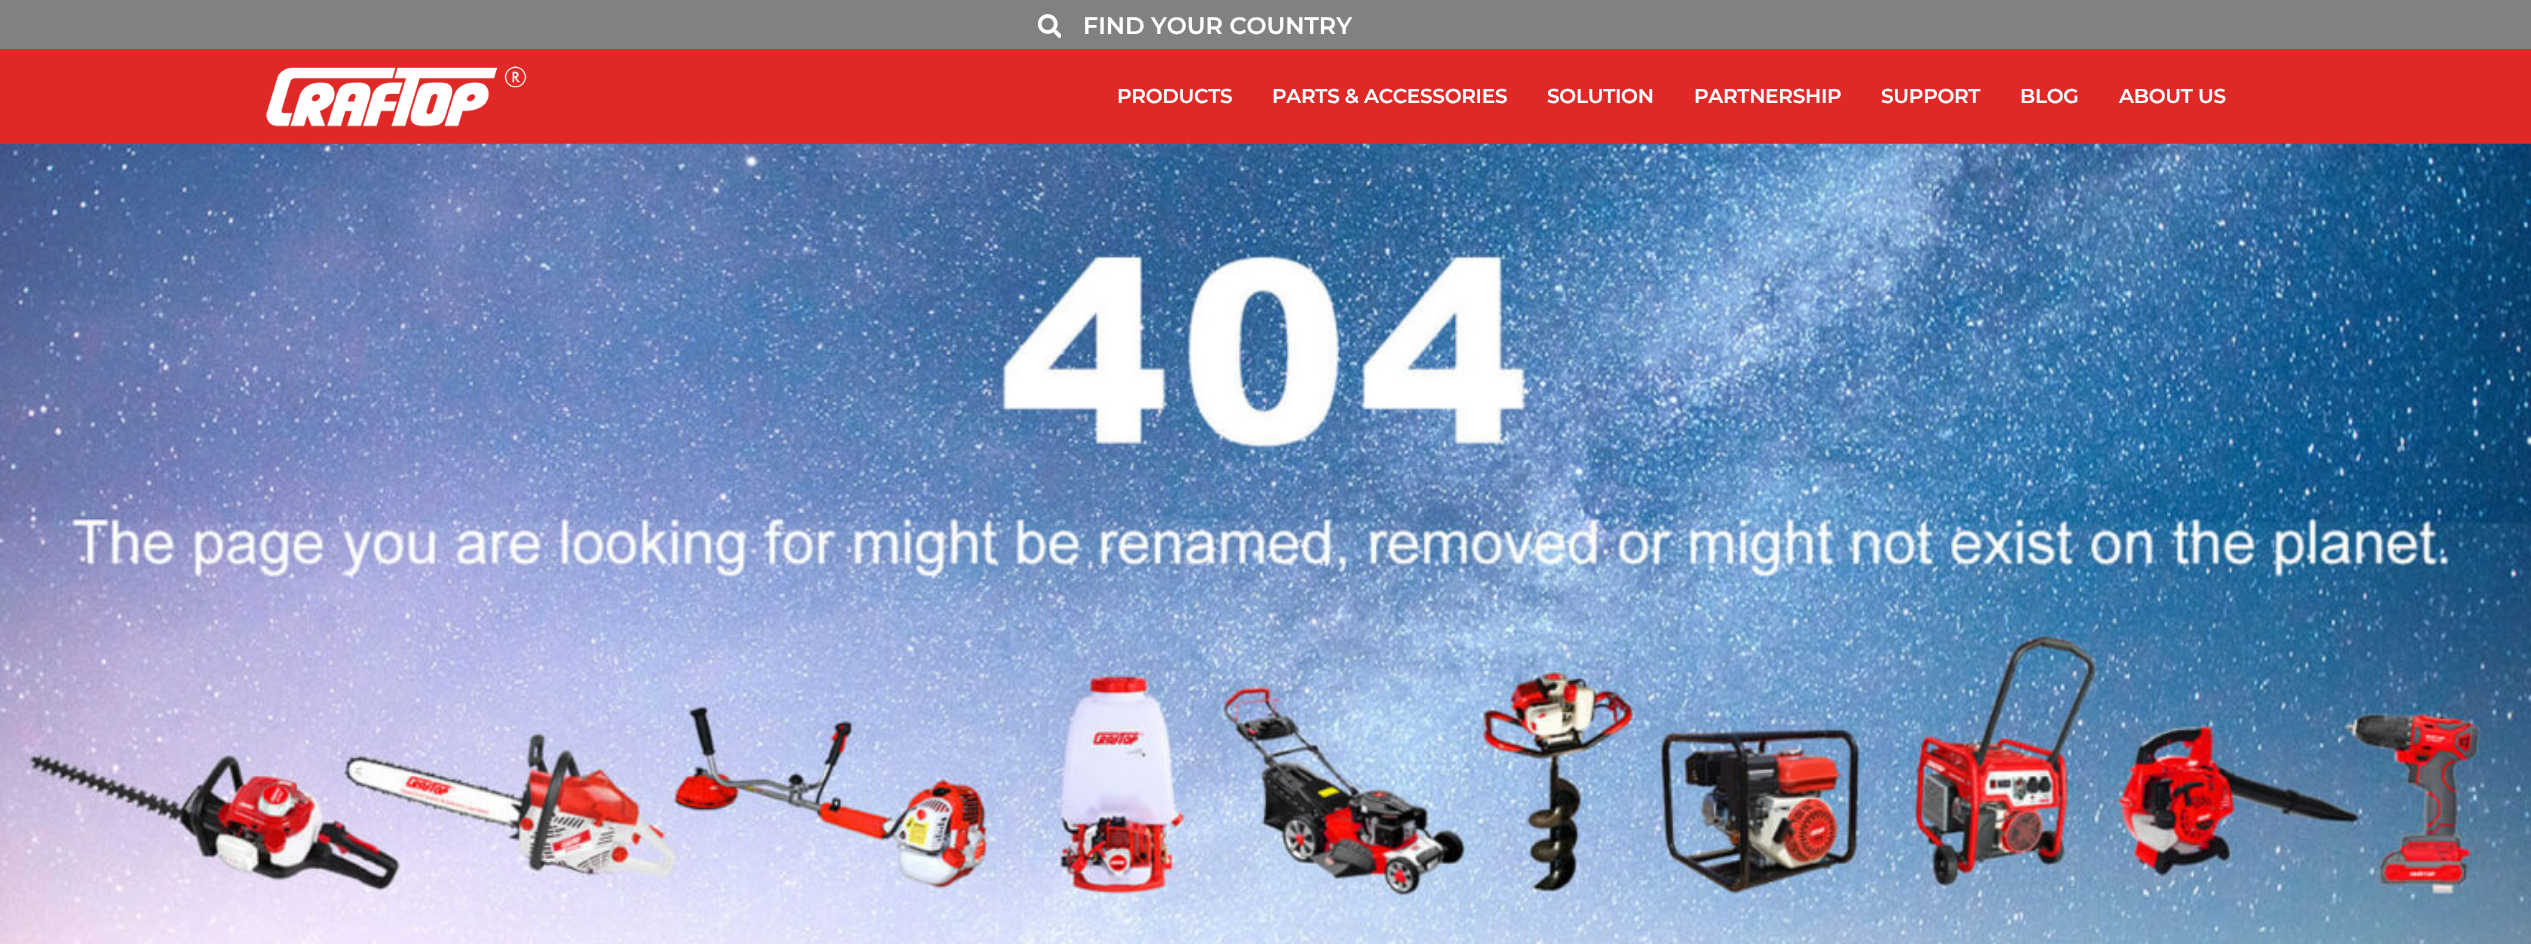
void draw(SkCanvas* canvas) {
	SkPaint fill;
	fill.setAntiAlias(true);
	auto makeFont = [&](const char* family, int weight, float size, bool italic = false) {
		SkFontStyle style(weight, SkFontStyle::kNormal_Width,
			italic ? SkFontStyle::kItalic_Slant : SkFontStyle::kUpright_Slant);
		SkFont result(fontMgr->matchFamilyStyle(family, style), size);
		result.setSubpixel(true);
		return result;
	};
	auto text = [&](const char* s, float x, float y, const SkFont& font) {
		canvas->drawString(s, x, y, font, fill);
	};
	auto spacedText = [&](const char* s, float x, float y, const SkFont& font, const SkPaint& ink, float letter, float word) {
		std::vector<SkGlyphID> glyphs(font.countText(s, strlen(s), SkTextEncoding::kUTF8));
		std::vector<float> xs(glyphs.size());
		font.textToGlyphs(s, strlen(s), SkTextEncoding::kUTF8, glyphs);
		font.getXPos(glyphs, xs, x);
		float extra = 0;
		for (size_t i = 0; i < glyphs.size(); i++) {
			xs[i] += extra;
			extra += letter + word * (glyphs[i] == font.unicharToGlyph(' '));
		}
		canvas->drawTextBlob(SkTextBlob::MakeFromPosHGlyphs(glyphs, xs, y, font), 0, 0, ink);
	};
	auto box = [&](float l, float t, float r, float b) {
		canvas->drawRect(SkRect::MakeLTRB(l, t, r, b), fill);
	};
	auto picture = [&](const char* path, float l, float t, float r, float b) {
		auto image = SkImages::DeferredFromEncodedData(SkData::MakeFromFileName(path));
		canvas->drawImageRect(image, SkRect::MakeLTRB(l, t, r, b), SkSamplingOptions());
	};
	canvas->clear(0xFF818082);
	picture("image0.png", 1038, 14, 1061, 38);
	fill.setColor(0xFFE02826);
	box(0, 49, 2531, 144);
	picture("image1.png", 266, 66, 527, 127);
	picture("image2.png", 0, 143, 2531, 944);
	auto font1 = makeFont("Montserrat", 600, 23.75f);
	fill.setColor(0xFFFFFFFF);
	text("FIND YOUR COUNTRY", 1083, 34, font1);
	auto font2 = makeFont("Montserrat", 600, 20);
	spacedText("PRODUCTS", 1117, 103, font2, fill, -0.25f, 0);
	spacedText("PARTS & ACCESSORIES", 1272, 103, font2, fill, -0.25f, 0);
	spacedText("SOLUTION", 1547, 103, font2, fill, -0.25f, 0);
	spacedText("PARTNERSHIP", 1694, 103, font2, fill, -0.25f, 0);
	spacedText("SUPPORT", 1881, 103, font2, fill, -0.25f, 0);
	spacedText("BLOG", 2020, 103, font2, fill, -0.25f, 0);
	spacedText("ABOUT US", 2119, 103, font2, fill, -0.25f, 0);
}
